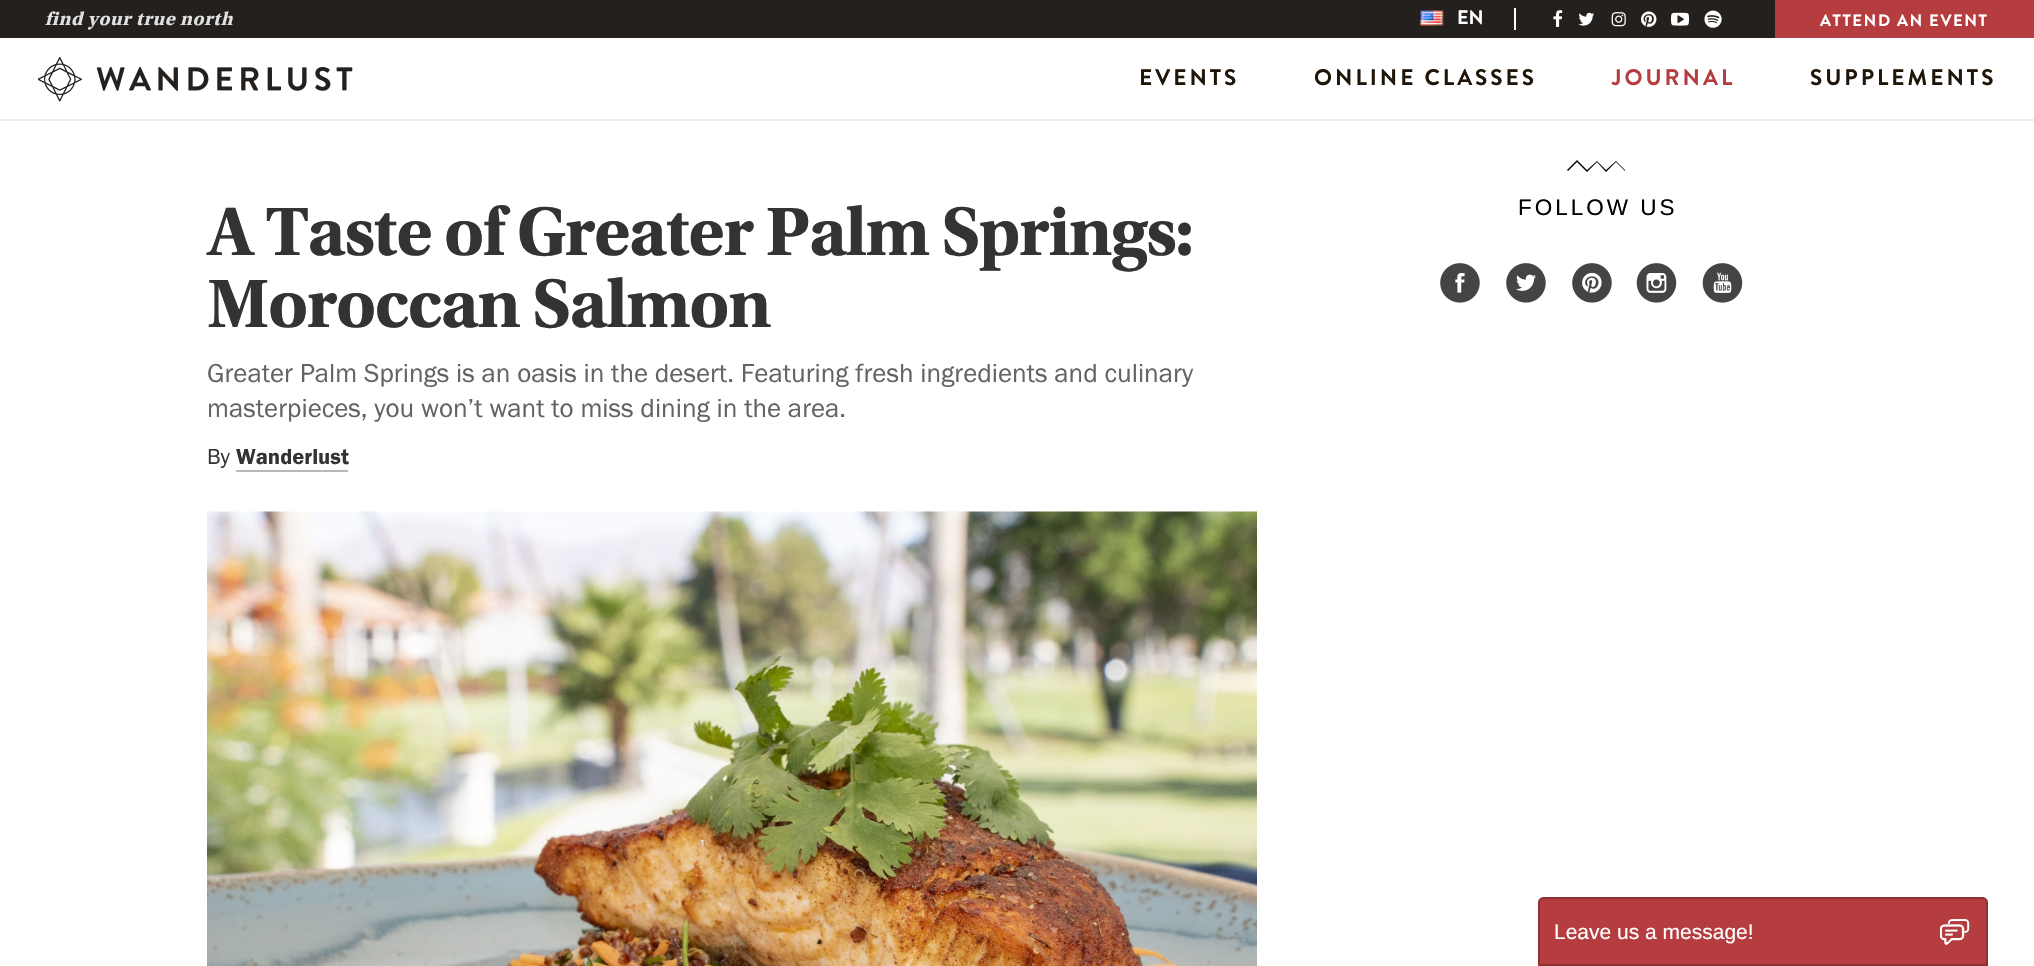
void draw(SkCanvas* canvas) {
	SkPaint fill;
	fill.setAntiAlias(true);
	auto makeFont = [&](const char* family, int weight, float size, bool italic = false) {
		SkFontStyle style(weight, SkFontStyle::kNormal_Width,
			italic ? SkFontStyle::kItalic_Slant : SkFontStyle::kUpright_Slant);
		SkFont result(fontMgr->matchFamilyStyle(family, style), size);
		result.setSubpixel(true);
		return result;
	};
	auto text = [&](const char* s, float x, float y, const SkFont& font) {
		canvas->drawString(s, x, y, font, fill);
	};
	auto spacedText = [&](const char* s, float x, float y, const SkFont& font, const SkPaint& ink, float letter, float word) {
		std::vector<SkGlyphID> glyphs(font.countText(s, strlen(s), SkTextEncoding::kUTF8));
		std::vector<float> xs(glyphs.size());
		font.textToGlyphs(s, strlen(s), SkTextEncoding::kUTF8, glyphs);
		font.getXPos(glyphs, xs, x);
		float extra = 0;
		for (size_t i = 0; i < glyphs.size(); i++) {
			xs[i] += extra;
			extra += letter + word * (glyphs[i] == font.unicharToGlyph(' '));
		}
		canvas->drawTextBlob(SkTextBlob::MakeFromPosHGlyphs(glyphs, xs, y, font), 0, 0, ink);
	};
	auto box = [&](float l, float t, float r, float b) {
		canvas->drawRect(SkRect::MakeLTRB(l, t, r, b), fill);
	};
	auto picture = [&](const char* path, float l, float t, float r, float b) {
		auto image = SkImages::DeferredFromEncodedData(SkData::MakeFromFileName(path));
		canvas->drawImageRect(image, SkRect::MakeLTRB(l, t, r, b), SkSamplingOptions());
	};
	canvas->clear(0xFFFFFFFF);
	fill.setColor(0xFF23201D);
	box(0, 0, 1775, 38);
	picture("image0.png", 1420, 10, 1444, 26);
	fill.setColor(0xFFFFFFFF);
	box(1514, 8, 1516, 30);
	picture("image1.png", 1553, 10, 1563, 27);
	picture("image2.png", 1578, 12, 1595, 26);
	picture("image3.png", 1611, 12, 1626, 27);
	picture("image4.png", 1641, 11, 1657, 27);
	picture("image5.png", 1671, 12, 1689, 26);
	picture("image6.png", 1704, 10, 1722, 28);
	fill.setColor(0xFFB53C3F);
	box(1775, 0, 2034, 38);
	fill.setColor(0xFFECECE8);
	box(0, 119, 2034, 121);
	picture("image7.png", 38, 57, 353, 102);
	fill.setColor(0xFFB8B8B8);
	box(236, 470, 348, 472);
	picture("image8.png", 207, 511, 1257, 966);
	fill.setColor(0xFF000000);
	canvas->drawPath(SkPathBuilder().moveTo(1606, 172).lineTo(1597, 162).lineTo(1587, 172).lineTo(1577, 162).lineTo(1568, 171).lineTo(1567, 170).lineTo(1577, 160).lineTo(1587, 170).lineTo(1597, 161).lineTo(1606, 170).lineTo(1616, 161).lineTo(1625, 170).lineTo(1625, 171).lineTo(1616, 162).close().detach(), fill);
	picture("image9.png", 1440, 263, 1480, 303);
	picture("image10.png", 1506, 263, 1546, 303);
	picture("image11.png", 1572, 263, 1612, 303);
	picture("image12.png", 1636, 263, 1677, 303);
	picture("image13.png", 1702, 263, 1743, 303);
	fill.setColor(0xFFB53C3F);
	canvas->drawPath(SkPathBuilder().moveTo(1544, 897).lineTo(1982, 897).cubicTo(1985.5f, 897, 1988, 899.5f, 1988, 903).lineTo(1988, 966).lineTo(1538, 966).lineTo(1538, 903).cubicTo(1538, 899.5f, 1540.5f, 897, 1544, 897).close().detach(), fill);
	picture("image14.png", 1940, 919, 1970, 945);
	fill.setStyle(SkPaint::kStroke_Style);
	fill.setStrokeWidth(2);
	fill.setColor(0x33000000);
	canvas->drawPath(SkPathBuilder().moveTo(1544, 898).lineTo(1982, 898).cubicTo(1985, 898, 1987, 900, 1987, 903).lineTo(1987, 965).lineTo(1539, 965).lineTo(1539, 903).cubicTo(1539, 900, 1541, 898, 1544, 898).close().detach(), fill);
	auto font1 = makeFont("Utopia", 700, 19.5f, true);
	fill.setStyle(SkPaint::kFill_Style);
	fill.setColor(0xFFE1E1E1);
	spacedText("find your true north", 45, 25, font1, fill, 0.75f, 0);
	auto font2 = makeFont("Brandon Grotesque", 700, 19.5f);
	fill.setColor(0xFFFFFFFF);
	text("EN", 1457, 24, font2);
	auto font3 = makeFont("Brandon Grotesque", 700, 16.5f);
	spacedText("ATTEND AN EVENT", 1820, 26, font3, fill, 1.6f, 0);
	auto font4 = makeFont("Brandon Grotesque", 700, 22.5f);
	fill.setColor(0xFF1F1508);
	spacedText("EVENTS", 1139, 85, font4, fill, 3, 0);
	spacedText("ONLINE CLASSES", 1314, 85, font4, fill, 3, 0);
	fill.setColor(0xFFB53C3F);
	spacedText("JOURNAL", 1612, 85, font4, fill, 3, 0);
	fill.setColor(0xFF1F1508);
	spacedText("SUPPLEMENTS", 1810, 85, font4, fill, 3, 0);
	auto font5 = makeFont("Utopia", 700, 72);
	fill.setColor(0xFF333333);
	spacedText("A Taste of Greater Palm Springs:", 207, 255, font5, fill, -1.5f, 0);
	spacedText("Moroccan Salmon", 207, 327, font5, fill, -1.5f, 0);
	auto font6 = makeFont("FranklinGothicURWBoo", 400, 27);
	fill.setColor(0xFF636363);
	text("Greater Palm Springs is an oasis in the desert. Featuring fresh ingredients and culinary", 207, 382, font6);
	text("masterpieces, you won’t want to miss dining in the area.", 207, 417, font6);
	auto font7 = makeFont("FranklinGothicURWBoo", 400, 22.5f);
	fill.setColor(0xFF333333);
	text("By", 207, 464, font7);
	auto font8 = makeFont("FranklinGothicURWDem", 400, 22.5f);
	text("Wanderlust", 236, 464, font8);
	auto font9 = makeFont("Liberation Sans", 400, 22.5f);
	fill.setColor(0xFF000000);
	spacedText("FOLLOW US", 1518, 215, font9, fill, 3, 0);
	auto font10 = makeFont("Liberation Sans", 400, 21);
	fill.setColor(0xFFFFFFFF);
	text("Leave us a message!", 1554, 939, font10);
}
